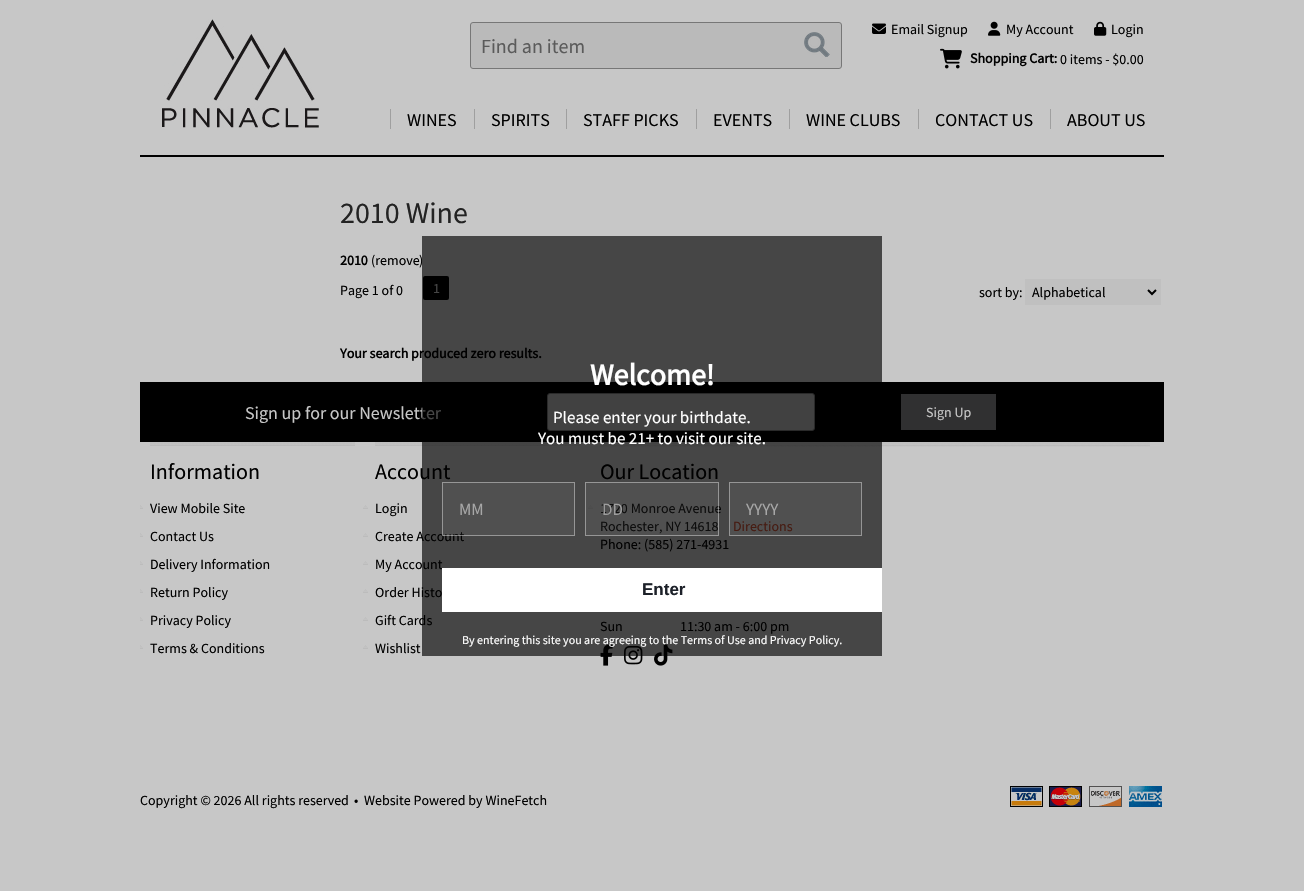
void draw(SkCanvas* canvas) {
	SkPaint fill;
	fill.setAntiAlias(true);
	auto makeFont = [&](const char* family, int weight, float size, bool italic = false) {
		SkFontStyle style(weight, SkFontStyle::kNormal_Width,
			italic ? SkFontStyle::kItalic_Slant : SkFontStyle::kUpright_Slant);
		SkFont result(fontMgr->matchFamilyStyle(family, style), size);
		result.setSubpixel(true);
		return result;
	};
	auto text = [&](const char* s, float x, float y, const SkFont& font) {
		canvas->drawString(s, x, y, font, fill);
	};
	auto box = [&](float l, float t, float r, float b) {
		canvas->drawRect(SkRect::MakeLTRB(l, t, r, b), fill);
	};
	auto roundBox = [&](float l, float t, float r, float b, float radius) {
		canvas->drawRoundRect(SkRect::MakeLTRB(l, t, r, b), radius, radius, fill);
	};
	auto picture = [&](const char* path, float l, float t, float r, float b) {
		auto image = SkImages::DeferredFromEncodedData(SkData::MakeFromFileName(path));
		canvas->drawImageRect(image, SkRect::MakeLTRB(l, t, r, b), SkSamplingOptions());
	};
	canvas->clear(0xFFC7C7C7);
	fill.setColor(0xFF000000);
	box(140, 155, 1164, 157);
	picture("image0.png", 162, 19, 319, 128);
	picture("image1.png", 872, 23, 886, 34);
	picture("image2.png", 988, 21, 1001, 36);
	picture("image3.png", 1094, 21, 1107, 36);
	fill.setColor(0xFFBABABA);
	canvas->drawRoundRect(SkRect::MakeLTRB(470.5f, 22.5f, 841.5f, 68.5f), 2.5f, 2.5f, fill);
	fill.setStyle(SkPaint::kStroke_Style);
	fill.setStrokeWidth(1);
	fill.setColor(0xFF777777);
	canvas->drawRoundRect(SkRect::MakeLTRB(470.5f, 22.5f, 841.5f, 68.5f), 2.5f, 2.5f, fill);
	picture("image4.png", 804, 32, 830, 57);
	picture("image5.png", 940, 48, 962, 69);
	fill.setStyle(SkPaint::kFill_Style);
	fill.setColor(0xFF9F9F9F);
	box(390, 109, 391, 129);
	box(474, 109, 475, 129);
	box(566, 109, 567, 129);
	box(696, 109, 697, 129);
	box(789, 109, 790, 129);
	box(918, 109, 919, 129);
	box(1050, 109, 1051, 129);
	fill.setColor(0xFF000000);
	roundBox(423, 276, 449, 300, 2);
	fill.setColor(0xFFC0C0C0);
	box(1025, 279, 1161, 305);
	fill.setStyle(SkPaint::kStroke_Style);
	fill.setStrokeWidth(2);
	fill.setColor(0xFF000000);
	canvas->drawPath(SkPathBuilder().moveTo(1148, 290).lineTo(1152, 294).lineTo(1156, 290).detach(), fill);
	fill.setStyle(SkPaint::kFill_Style);
	box(140, 382, 1164, 442);
	fill.setColor(0xFFBABABA);
	canvas->drawRoundRect(SkRect::MakeLTRB(547.5f, 393.5f, 814.5f, 430.5f), 2.5f, 2.5f, fill);
	fill.setStyle(SkPaint::kStroke_Style);
	fill.setStrokeWidth(1);
	fill.setColor(0xFF777777);
	canvas->drawRoundRect(SkRect::MakeLTRB(547.5f, 393.5f, 814.5f, 430.5f), 2.5f, 2.5f, fill);
	fill.setStyle(SkPaint::kFill_Style);
	fill.setColor(0xFF303031);
	box(901, 394, 996, 430);
	picture("image6.png", 150, 442, 355, 446);
	picture("image7.png", 140, 505, 143, 509);
	picture("image7.png", 140, 533, 143, 537);
	picture("image7.png", 140, 561, 143, 565);
	picture("image7.png", 140, 589, 143, 593);
	picture("image7.png", 140, 617, 143, 621);
	picture("image7.png", 140, 645, 143, 649);
	picture("image6.png", 375, 442, 580, 446);
	picture("image8.png", 363, 505, 368, 509);
	picture("image8.png", 363, 533, 368, 537);
	picture("image8.png", 363, 561, 368, 565);
	picture("image8.png", 363, 589, 368, 593);
	picture("image8.png", 363, 617, 368, 621);
	picture("image8.png", 363, 645, 368, 649);
	picture("image9.png", 600, 442, 1150, 447);
	picture("image8.png", 588, 505, 593, 509);
	picture("image10.png", 600, 644, 613, 666);
	picture("image11.png", 624, 645, 643, 665);
	picture("image12.png", 654, 644, 673, 666);
	picture("image13.png", 1010, 786, 1043, 807);
	picture("image14.png", 1049, 786, 1082, 807);
	picture("image15.png", 1089, 786, 1122, 807);
	picture("image16.png", 1129, 786, 1162, 807);
	auto font1 = makeFont("Source Sans Pro", 400, 14);
	fill.setColor(0xFF000000);
	text("Email Signup", 891, 34, font1);
	text("My Account", 1006, 34, font1);
	text("Login", 1111, 34, font1);
	auto font2 = makeFont("Source Sans Pro", 400, 20);
	fill.setColor(0xFF5B5B5B);
	text("Find an item", 481, 53, font2);
	auto font3 = makeFont("Source Sans Pro", 700, 14);
	fill.setColor(0xFF000000);
	text("Shopping Cart:", 970, 63, font3);
	text("0 items - $0.00", 1060, 64, font1);
	auto font4 = makeFont("Source Sans Pro", 400, 18);
	text("WINES", 407, 126, font4);
	text("SPIRITS", 491, 126, font4);
	text("STAFF PICKS", 583, 126, font4);
	text("EVENTS", 713, 126, font4);
	text("WINE CLUBS", 806, 126, font4);
	text("CONTACT US", 935, 126, font4);
	text("ABOUT US", 1067, 126, font4);
	auto font5 = makeFont("Source Sans Pro", 400, 30);
	fill.setColor(0xFF232323);
	text("2010 Wine", 340, 223, font5);
	fill.setColor(0xFF000000);
	text("2010", 340, 265, font3);
	text("(remove", 371, 265, font1);
	text(")", 419, 265, font1);
	text("Page 1 of 0", 340, 295, font1);
	fill.setColor(0xFFC7C7C7);
	text("1", 433, 293, font1);
	fill.setColor(0xFF000000);
	text("sort by:", 979, 297, font1);
	text("Alphabetical", 1032, 297, font1);
	text("Your search produced zero results.", 340, 358, font3);
	fill.setColor(0xFFC7C7C7);
	text("Sign up for our Newsletter", 245, 419, font4);
	text("Sign Up", 926, 417, font1);
	auto font6 = makeFont("Source Sans Pro", 400, 22);
	fill.setColor(0xFF000000);
	text("Information", 150, 479, font6);
	text("View Mobile Site", 150, 513, font1);
	text("Contact Us", 150, 541, font1);
	text("Delivery Information", 150, 569, font1);
	text("Return Policy", 150, 597, font1);
	text("Privacy Policy", 150, 625, font1);
	text("Terms & Conditions", 150, 653, font1);
	text("Account", 375, 479, font6);
	text("Login", 375, 513, font1);
	text("Create Account", 375, 541, font1);
	text("My Account", 375, 569, font1);
	text("Order Histo", 375, 597, font1);
	text("Gift Cards", 375, 625, font1);
	text("Wishlist", 375, 653, font1);
	text("Our Location", 600, 479, font6);
	text("1720 Monroe Avenue", 600, 513, font1);
	text("Rochester, NY 14618", 600, 531, font1);
	fill.setColor(0xFFAD2A0C);
	text("Directions", 733, 531, font1);
	fill.setColor(0xFF000000);
	text("Phone: (585) 271-4931", 600, 549, font1);
	text("Sun", 600, 631, font1);
	text("11:30 am - 6:00 pm", 680, 631, font1);
	fill.setColor(0xA6000000);
	box(422, 236, 882, 656);
	auto font7 = makeFont("Source Sans Pro", 400, 12);
	fill.setColor(0xFFFFFFFF);
	text("By entering this site you are agreeing to the Terms of Use and Privacy Policy.", 462, 644, font7);
	box(442, 568, 882, 612);
	auto font8 = makeFont("Liberation Sans", 700, 17);
	fill.setColor(0xFF1D2129);
	text("Enter", 642, 595, font8);
	fill.setColor(0x0DFFFFFF);
	canvas->drawRect(SkRect::MakeLTRB(729.5f, 482.5f, 861.5f, 535.5f), fill);
	fill.setStyle(SkPaint::kStroke_Style);
	fill.setColor(0xFF959595);
	canvas->drawRect(SkRect::MakeLTRB(729.5f, 482.5f, 861.5f, 535.5f), fill);
	auto font9 = makeFont("Source Sans Pro", 400, 17);
	fill.setStyle(SkPaint::kFill_Style);
	fill.setColor(0xFFA7A7A7);
	text("YYYY", 746, 515, font9);
	fill.setColor(0x0DFFFFFF);
	box(585, 482, 719, 536);
	fill.setStyle(SkPaint::kStroke_Style);
	fill.setColor(0x66FFFFFF);
	canvas->drawRect(SkRect::MakeLTRB(585.5f, 482.5f, 718.5f, 535.5f), fill);
	fill.setStyle(SkPaint::kFill_Style);
	fill.setColor(0xFF9E9E9E);
	text("DD", 602, 515, font9);
	fill.setColor(0x0DFFFFFF);
	box(442, 482, 575, 536);
	fill.setStyle(SkPaint::kStroke_Style);
	fill.setColor(0x66FFFFFF);
	canvas->drawRect(SkRect::MakeLTRB(442.5f, 482.5f, 574.5f, 535.5f), fill);
	fill.setStyle(SkPaint::kFill_Style);
	fill.setColor(0xFFA7A7A7);
	text("MM", 459, 515, font9);
	fill.setColor(0xFFFFFFFF);
	text("You must be 21+ to visit our site.", 538, 444, font9);
	text("Please enter your birthdate.", 553, 423, font9);
	auto font10 = makeFont("Source Sans Pro", 700, 30);
	text("Welcome!", 590, 385, font10);
	fill.setColor(0xFF000000);
	text("Copyright © 2026 All rights reserved", 140, 805, font1);
	text("•", 354, 805, font1);
	text("Website Powered by WineFetch", 364, 805, font1);
}
